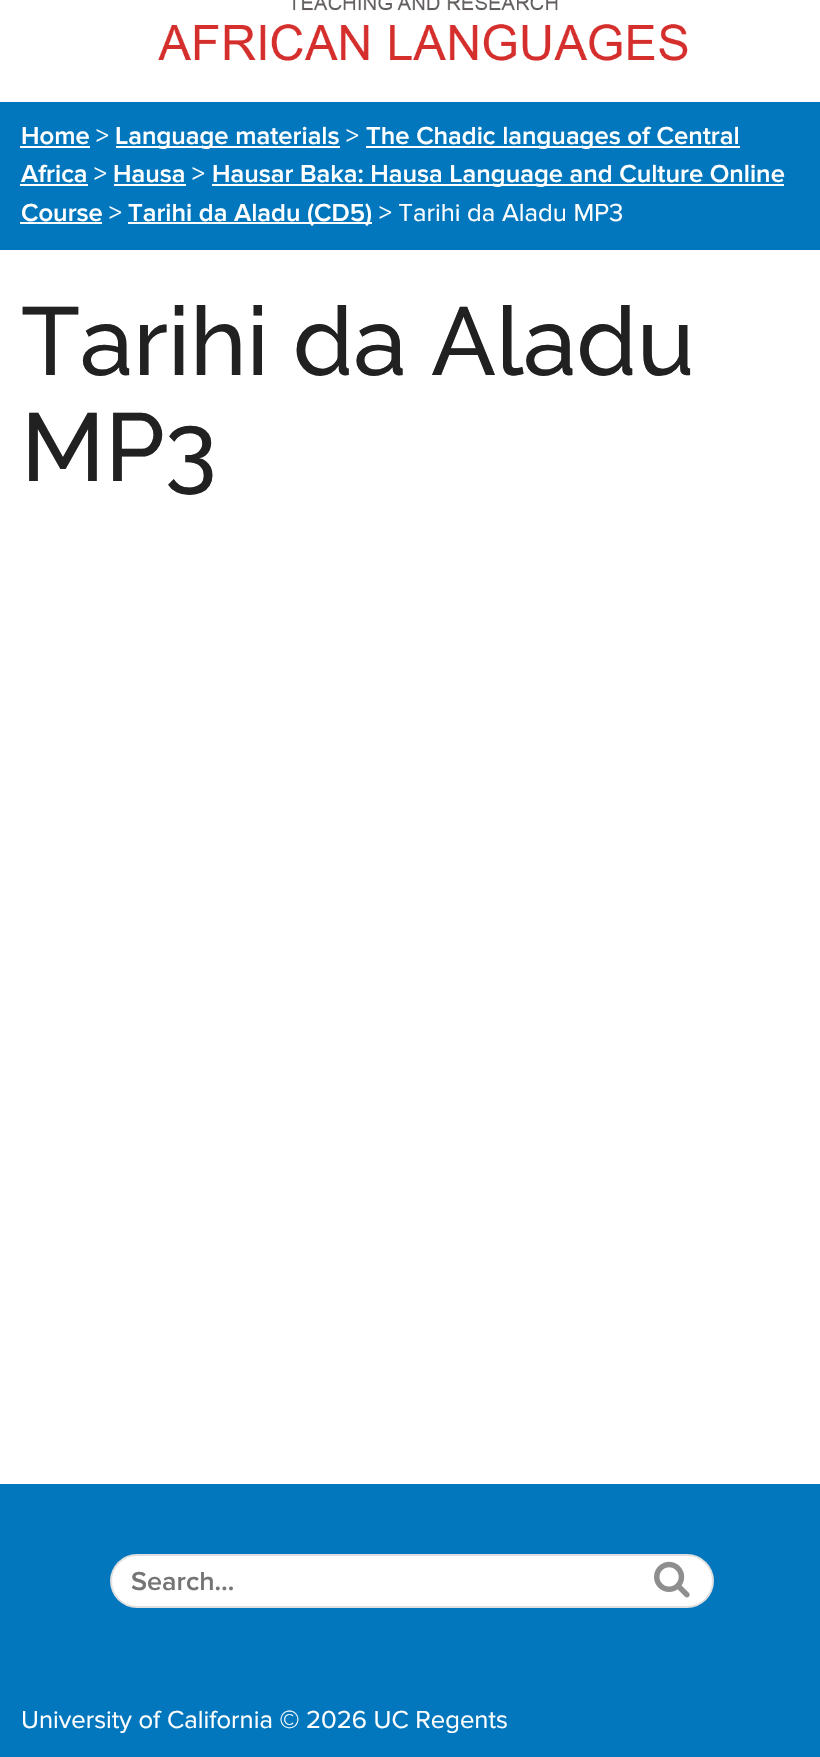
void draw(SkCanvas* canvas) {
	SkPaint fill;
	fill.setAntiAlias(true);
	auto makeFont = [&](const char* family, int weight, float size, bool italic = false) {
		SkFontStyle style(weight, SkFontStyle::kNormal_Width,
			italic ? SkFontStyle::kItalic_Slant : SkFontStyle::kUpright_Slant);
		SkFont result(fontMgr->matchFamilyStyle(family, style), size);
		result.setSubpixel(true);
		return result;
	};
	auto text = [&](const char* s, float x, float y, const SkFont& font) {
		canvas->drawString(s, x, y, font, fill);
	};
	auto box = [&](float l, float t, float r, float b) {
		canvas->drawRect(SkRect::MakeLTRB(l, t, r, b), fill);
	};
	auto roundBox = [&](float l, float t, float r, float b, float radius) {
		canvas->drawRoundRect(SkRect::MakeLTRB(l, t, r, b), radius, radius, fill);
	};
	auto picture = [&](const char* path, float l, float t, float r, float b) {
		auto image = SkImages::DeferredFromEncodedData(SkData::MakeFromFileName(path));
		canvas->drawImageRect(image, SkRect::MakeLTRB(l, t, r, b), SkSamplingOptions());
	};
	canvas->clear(0xFFFFFFFF);
	picture("image0.png", 158, 0, 688, 61);
	fill.setColor(0xFF0277BD);
	box(0, 102, 820, 250);
	fill.setColor(0xFFFFFFFF);
	box(20, 146, 90, 148);
	box(116, 146, 340, 148);
	box(366, 146, 740, 148);
	box(20, 184, 88, 186);
	box(114, 184, 186, 186);
	box(212, 184, 784, 186);
	box(20, 222, 102, 224);
	box(128, 222, 372, 224);
	fill.setColor(0xFF0277BD);
	box(0, 1484, 820, 1757);
	fill.setColor(0xFFFFFFFF);
	roundBox(110, 1554, 714, 1608, 27);
	fill.setStyle(SkPaint::kStroke_Style);
	fill.setStrokeWidth(2);
	fill.setColor(0x1F000000);
	canvas->drawRoundRect(SkRect::MakeLTRB(111, 1555, 713, 1607), 26, 26, fill);
	picture("image1.png", 654, 1561, 690, 1598);
	auto font1 = makeFont("Proxima Nova", 600, 25.6f);
	fill.setStyle(SkPaint::kFill_Style);
	fill.setColor(0xFFFFFFFF);
	text("Home", 21, 144, font1);
	auto font2 = makeFont("Proxima Nova", 400, 25.6f);
	text(">", 96, 144, font2);
	text("Language materials", 115, 144, font1);
	text(">", 346, 144, font2);
	text("The Chadic languages of Central", 366, 144, font1);
	text("Africa", 21, 182, font1);
	text(">", 94, 182, font2);
	text("Hausa", 113, 182, font1);
	text(">", 192, 182, font2);
	text("Hausar Baka: Hausa Language and Culture Online", 212, 182, font1);
	text("Course", 21, 221, font1);
	text(">", 109, 221, font2);
	text("Tarihi da Aladu (CD5)", 128, 221, font1);
	text("> Tarihi da Aladu MP3", 379, 221, font2);
	auto font3 = makeFont("Raleway", 500, 96);
	fill.setColor(0xFF212121);
	text("Tarihi da Aladu", 21, 375, font3);
	text("MP3", 21, 481, font3);
	auto font4 = makeFont("Proxima Nova", 600, 27);
	fill.setColor(0xFF757575);
	text("Search…", 131, 1590, font4);
	fill.setColor(0xFFFFFFFF);
	text("University of California © 2026 UC Regents", 21, 1728, font2);
}
